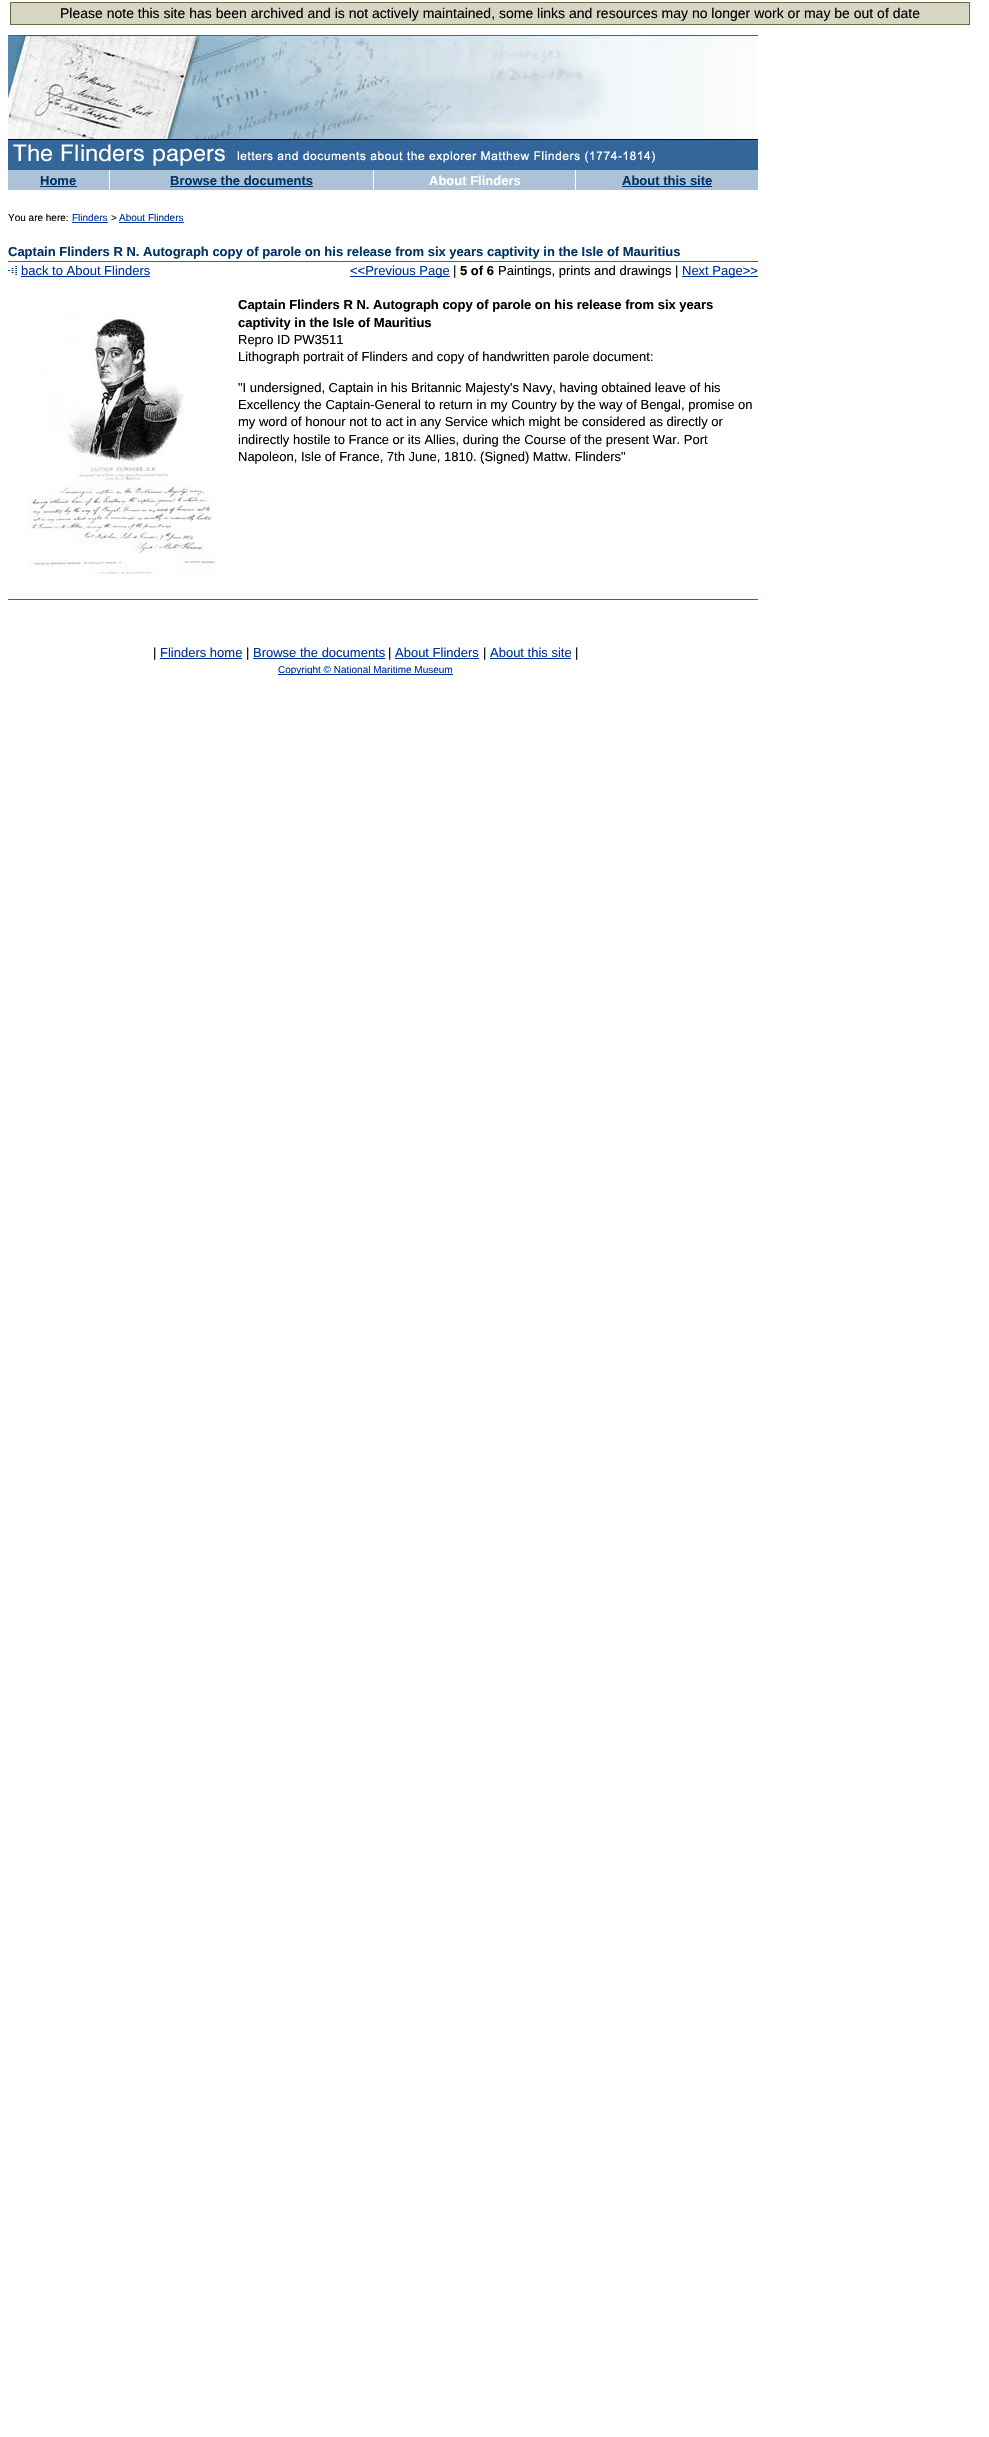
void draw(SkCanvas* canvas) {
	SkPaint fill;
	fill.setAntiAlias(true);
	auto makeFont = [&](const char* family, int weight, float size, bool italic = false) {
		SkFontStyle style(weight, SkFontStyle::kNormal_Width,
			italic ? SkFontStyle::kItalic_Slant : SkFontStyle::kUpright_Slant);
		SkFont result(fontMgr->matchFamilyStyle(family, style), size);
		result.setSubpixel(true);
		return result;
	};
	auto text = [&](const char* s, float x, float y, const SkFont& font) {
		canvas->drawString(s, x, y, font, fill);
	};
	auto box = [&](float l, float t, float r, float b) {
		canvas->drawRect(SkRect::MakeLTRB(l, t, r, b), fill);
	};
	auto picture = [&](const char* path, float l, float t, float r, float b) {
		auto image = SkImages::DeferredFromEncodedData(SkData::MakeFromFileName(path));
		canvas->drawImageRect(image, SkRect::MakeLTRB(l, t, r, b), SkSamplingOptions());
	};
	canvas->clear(0xFFFFFFFF);
	fill.setColor(0xFFD6D6C2);
	canvas->drawRect(SkRect::MakeLTRB(10.5f, 2.5f, 969.5f, 24.5f), fill);
	fill.setStyle(SkPaint::kStroke_Style);
	fill.setStrokeWidth(1);
	fill.setColor(0xFF6B6B47);
	canvas->drawRect(SkRect::MakeLTRB(10.5f, 2.5f, 969.5f, 24.5f), fill);
	picture("image0.png", 8, 35, 758, 170);
	fill.setStyle(SkPaint::kFill_Style);
	fill.setColor(0xFFADC2D6);
	box(8, 170, 109, 190);
	fill.setColor(0xFF003366);
	box(40, 186, 77, 187);
	fill.setColor(0xFFADC2D6);
	box(110, 170, 373, 190);
	fill.setColor(0xFF003366);
	box(170, 186, 313, 187);
	fill.setColor(0xFFADC2D6);
	box(374, 170, 575, 190);
	box(576, 170, 758, 190);
	fill.setColor(0xFF003366);
	box(622, 186, 712, 187);
	fill.setColor(0xFF003399);
	box(72, 222, 108, 223);
	box(119, 222, 184, 223);
	fill.setColor(0xFF336699);
	box(8, 261, 758, 262);
	picture("image1.png", 8, 266, 17, 275);
	fill.setColor(0xFF003399);
	box(21, 276, 150, 277);
	box(350, 276, 450, 277);
	box(682, 276, 758, 277);
	picture("image2.png", 28, 314, 218, 577);
	fill.setColor(0xFF336699);
	box(8, 599, 758, 600);
	fill.setColor(0xFF003399);
	box(160, 658, 242, 659);
	box(253, 658, 385, 659);
	box(395, 658, 479, 659);
	box(490, 658, 571, 659);
	box(278, 674, 453, 675);
	auto font1 = makeFont("Liberation Sans", 400, 14);
	fill.setColor(0xFF000000);
	text("Please note this site has been archived and is not actively maintained, some links and resources may no longer work or may be out of date", 60, 18, font1);
	auto font2 = makeFont("Liberation Sans", 700, 13);
	fill.setColor(0xFF003366);
	text("Home", 40, 185, font2);
	text("Browse the documents", 170, 185, font2);
	fill.setColor(0xFFFFFFFF);
	text("About Flinders", 429, 185, font2);
	fill.setColor(0xFF003366);
	text("About this site", 622, 185, font2);
	auto font3 = makeFont("Liberation Sans", 400, 10);
	fill.setColor(0xFF000000);
	text("You are here:", 8, 221, font3);
	fill.setColor(0xFF003399);
	text("Flinders", 72, 221, font3);
	fill.setColor(0xFF000000);
	text(">", 111, 221, font3);
	fill.setColor(0xFF003399);
	text("About Flinders", 119, 221, font3);
	fill.setColor(0xFF003366);
	text("Captain Flinders R N. Autograph copy of parole on his release from six years captivity in the Isle of Mauritius", 8, 256, font2);
	auto font4 = makeFont("Liberation Sans", 400, 13);
	fill.setColor(0xFF003399);
	text("back to About Flinders", 21, 275, font4);
	text("<<Previous Page", 350, 275, font4);
	fill.setColor(0xFF000000);
	text("|", 453, 275, font4);
	text("5 of 6", 460, 275, font2);
	text("Paintings, prints and drawings |", 498, 275, font4);
	fill.setColor(0xFF003399);
	text("Next Page>>", 682, 275, font4);
	fill.setColor(0xFF000000);
	text("Captain Flinders R N. Autograph copy of parole on his release from six years", 238, 309, font2);
	text("captivity in the Isle of Mauritius", 238, 327, font2);
	text("Repro ID PW3511", 238, 344, font4);
	text("Lithograph portrait of Flinders and copy of handwritten parole document:", 238, 361, font4);
	text("\"I undersigned, Captain in his Britannic Majesty's Navy, having obtained leave of his", 238, 392, font4);
	text("Excellency the Captain-General to return in my Country by the way of Bengal, promise on", 238, 409, font4);
	text("my word of honour not to act in any Service which might be considered as directly or", 238, 426, font4);
	text("indirectly hostile to France or its Allies, during the Course of the present War. Port", 238, 444, font4);
	text("Napoleon, Isle of France, 7th June, 1810. (Signed) Mattw. Flinders\"", 238, 461, font4);
	text("|", 153, 657, font4);
	fill.setColor(0xFF003399);
	text("Flinders home", 160, 657, font4);
	fill.setColor(0xFF000000);
	text("|", 246, 657, font4);
	fill.setColor(0xFF003399);
	text("Browse the documents", 253, 657, font4);
	fill.setColor(0xFF000000);
	text("|", 388, 657, font4);
	fill.setColor(0xFF003399);
	text("About Flinders", 395, 657, font4);
	fill.setColor(0xFF000000);
	text("|", 483, 657, font4);
	fill.setColor(0xFF003399);
	text("About this site", 490, 657, font4);
	fill.setColor(0xFF000000);
	text("|", 575, 657, font4);
	fill.setColor(0xFF003399);
	text("Copyright © National Maritime Museum", 278, 673, font3);
}
